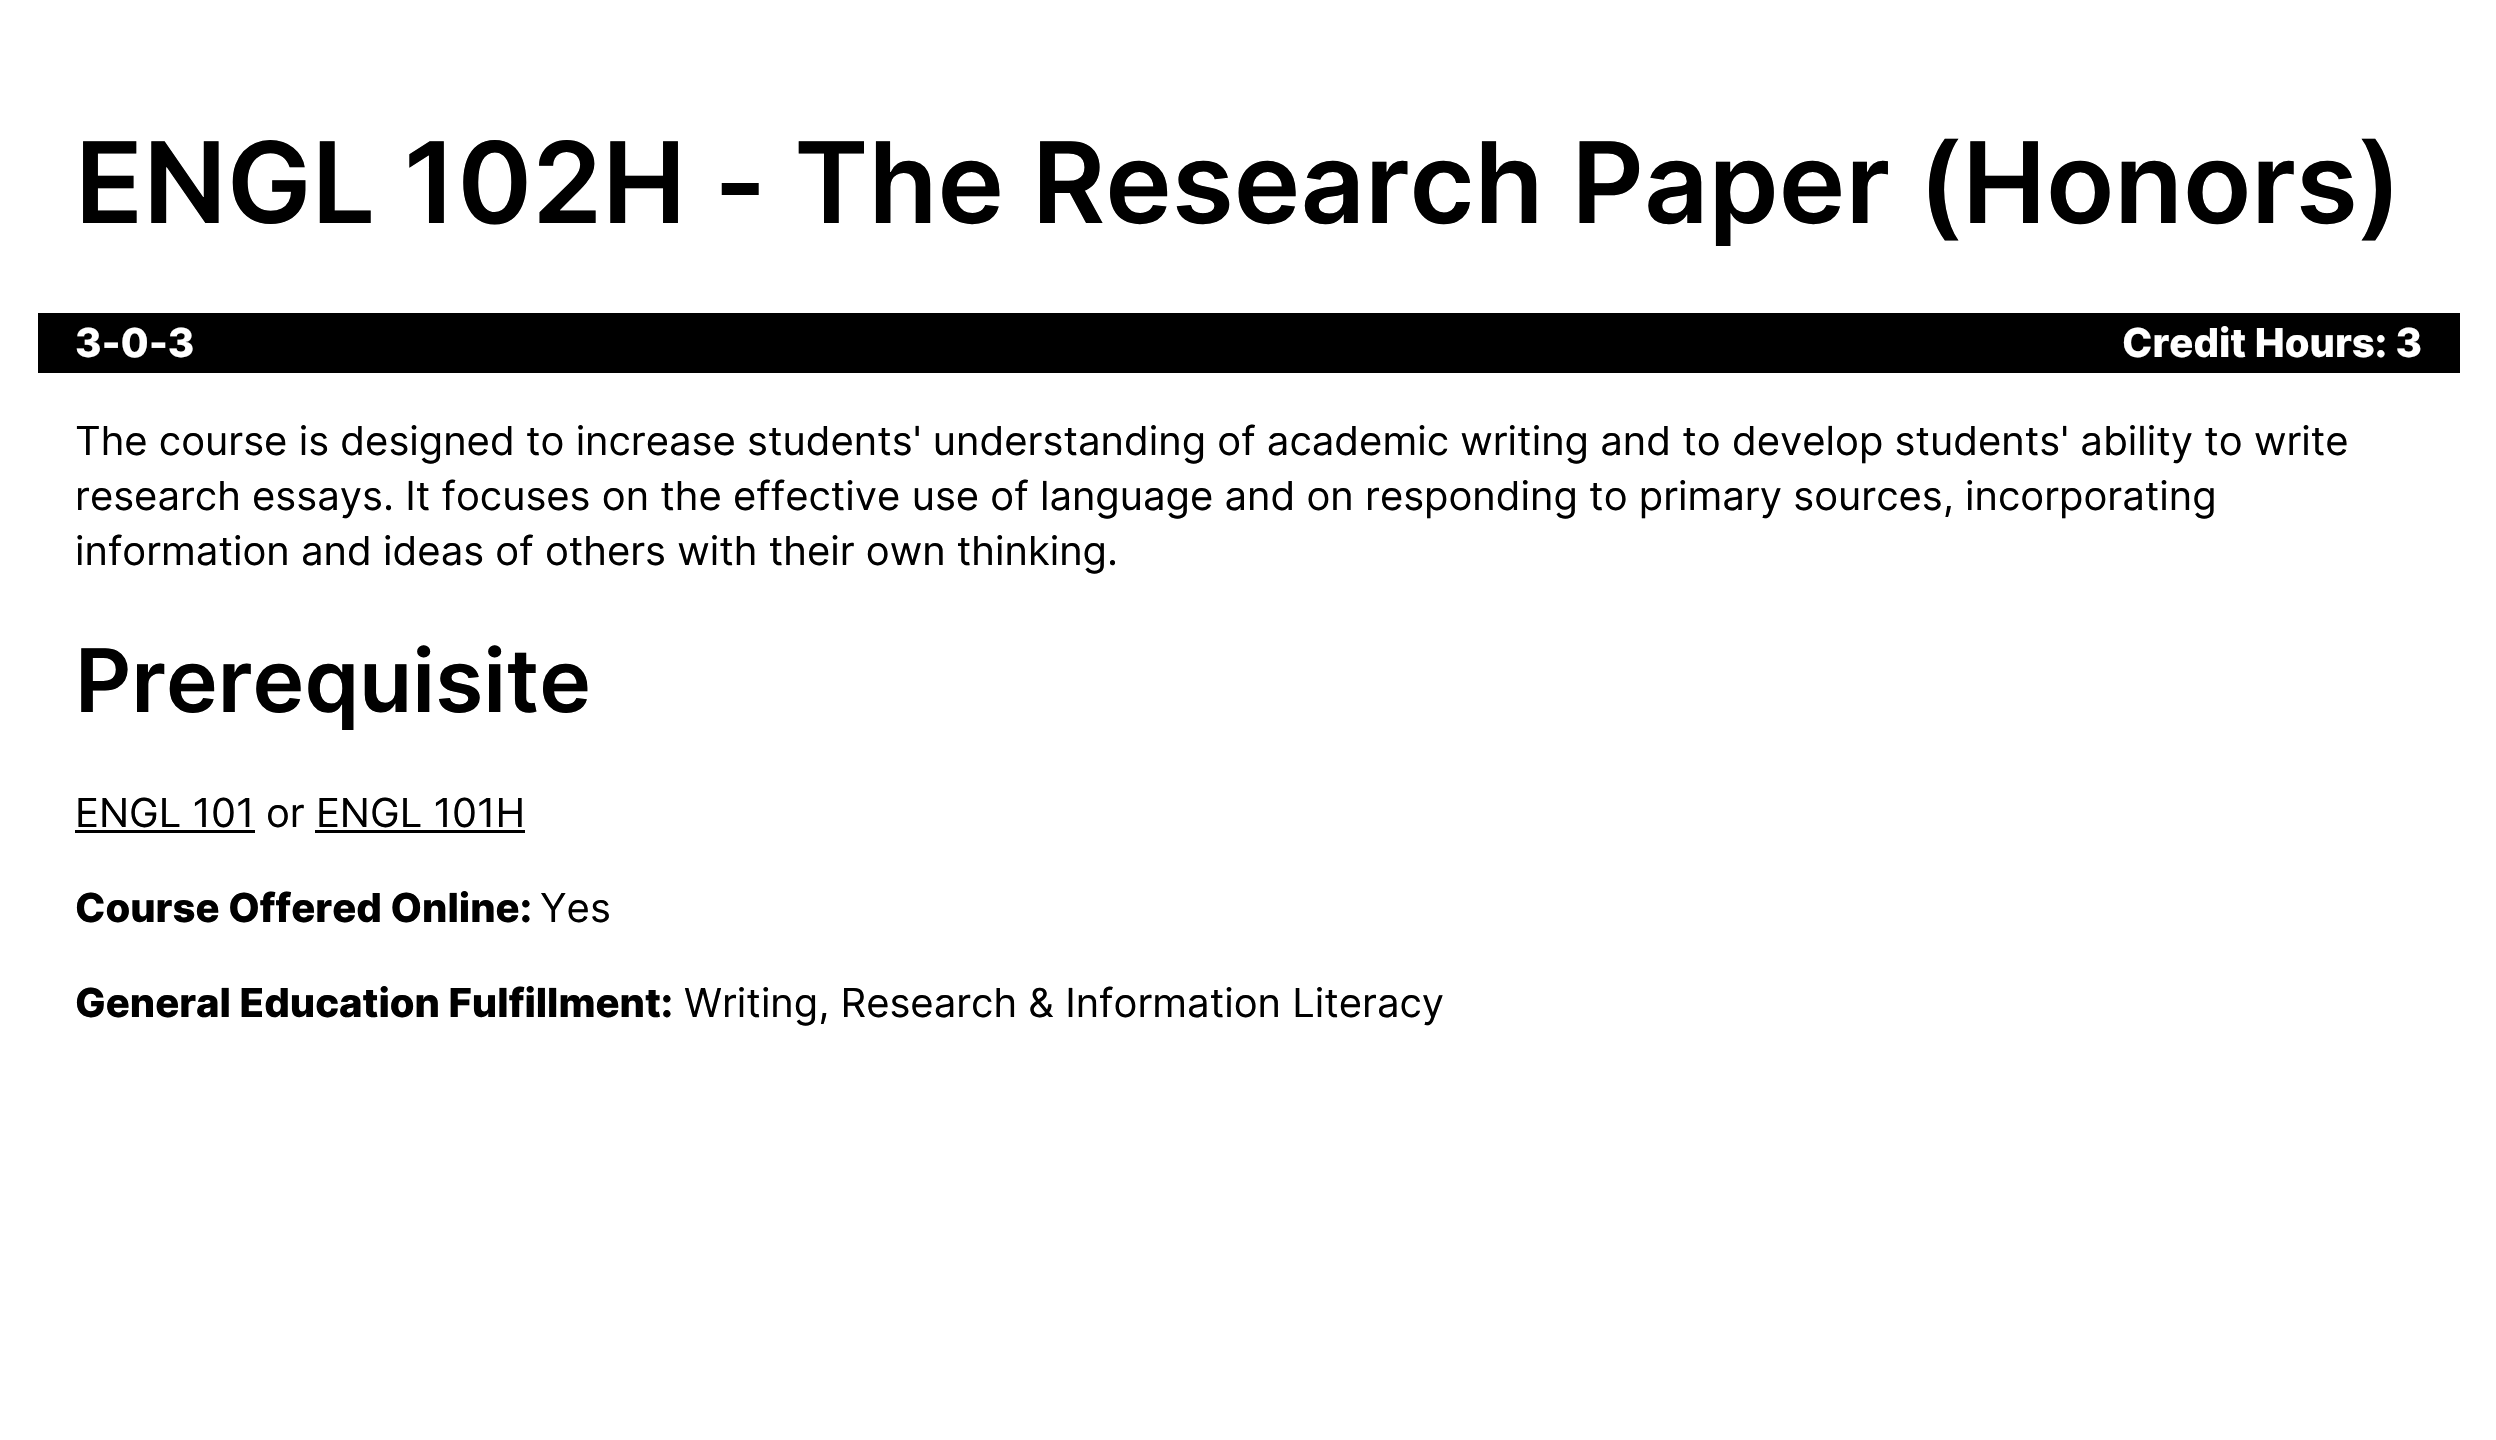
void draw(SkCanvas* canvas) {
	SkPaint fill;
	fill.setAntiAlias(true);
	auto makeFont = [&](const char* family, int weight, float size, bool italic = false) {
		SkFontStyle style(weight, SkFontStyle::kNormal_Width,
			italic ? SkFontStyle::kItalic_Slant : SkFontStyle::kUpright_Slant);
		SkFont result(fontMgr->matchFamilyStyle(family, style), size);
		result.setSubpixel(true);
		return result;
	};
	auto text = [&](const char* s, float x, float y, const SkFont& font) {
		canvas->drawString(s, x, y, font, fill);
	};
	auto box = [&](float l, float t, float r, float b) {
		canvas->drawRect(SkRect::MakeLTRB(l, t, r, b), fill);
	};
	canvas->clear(0xFFFFFFFF);
	fill.setColor(0xFF000000);
	box(38, 313, 2460, 373);
	box(75, 830, 255, 833);
	box(315, 830, 525, 833);
	auto font1 = makeFont("Inter", 600, 112.5f);
	text("ENGL 102H - The Research Paper (Honors)", 75, 223, font1);
	auto font2 = makeFont("Inter", 800, 40);
	fill.setColor(0xFFFFFFFF);
	text("3-0-3", 75, 357, font2);
	text("Credit Hours: 3", 2122, 357, font2);
	auto font3 = makeFont("Inter", 400, 40);
	fill.setColor(0xFF000000);
	text("The course is designed to increase students' understanding of academic writing and to develop students' ability to write", 75, 455, font3);
	text("research essays. It focuses on the effective use of language and on responding to primary sources, incorporating", 75, 510, font3);
	text("information and ideas of others with their own thinking.", 75, 565, font3);
	auto font4 = makeFont("Inter", 600, 87.5f);
	text("Prerequisite", 75, 712, font4);
	text("ENGL 101 or ENGL 101H", 75, 827, font3);
	text("Course Offered Online:", 75, 922, font2);
	text("Yes", 540, 922, font3);
	text("General Education Fulfillment:", 75, 1017, font2);
	text("Writing, Research & Information Literacy", 684, 1017, font3);
}
